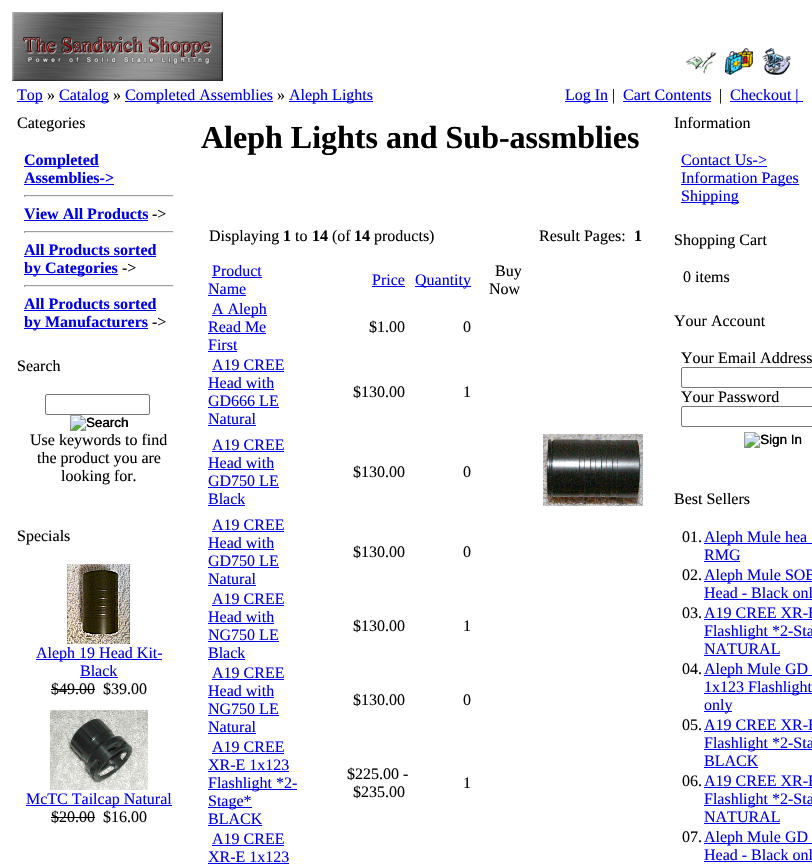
void draw(SkCanvas* canvas) {
	SkPaint fill;
	fill.setAntiAlias(true);
	auto makeFont = [&](const char* family, int weight, float size, bool italic = false) {
		SkFontStyle style(weight, SkFontStyle::kNormal_Width,
			italic ? SkFontStyle::kItalic_Slant : SkFontStyle::kUpright_Slant);
		SkFont result(fontMgr->matchFamilyStyle(family, style), size);
		result.setSubpixel(true);
		return result;
	};
	auto text = [&](const char* s, float x, float y, const SkFont& font) {
		canvas->drawString(s, x, y, font, fill);
	};
	auto box = [&](float l, float t, float r, float b) {
		canvas->drawRect(SkRect::MakeLTRB(l, t, r, b), fill);
	};
	auto picture = [&](const char* path, float l, float t, float r, float b) {
		auto image = SkImages::DeferredFromEncodedData(SkData::MakeFromFileName(path));
		canvas->drawImageRect(image, SkRect::MakeLTRB(l, t, r, b), SkSamplingOptions());
	};
	canvas->clear(0xFFFFFFFF);
	picture("image0.png", 12, 12, 223, 81);
	picture("image1.png", 686, 52, 716, 74);
	picture("image2.png", 725, 48, 753, 75);
	picture("image3.png", 762, 48, 791, 75);
	fill.setColor(0xFF0000EE);
	box(17, 101, 43, 102);
	box(59, 101, 109, 102);
	box(125, 101, 273, 102);
	box(289, 101, 373, 102);
	box(565, 101, 608, 102);
	box(623, 101, 711, 102);
	box(730, 101, 803, 102);
	box(24, 166, 99, 167);
	box(24, 184, 114, 185);
	fill.setColor(0xFF9F9F9F);
	box(24, 195, 174, 196);
	fill.setColor(0xFFEEEEEE);
	box(173, 195, 174, 197);
	box(24, 196, 174, 197);
	fill.setColor(0xFF9F9F9F);
	box(24, 195, 25, 197);
	fill.setColor(0xFF0000EE);
	box(24, 220, 148, 221);
	fill.setColor(0xFF9F9F9F);
	box(24, 231, 174, 232);
	fill.setColor(0xFFEEEEEE);
	box(173, 231, 174, 233);
	box(24, 232, 174, 233);
	fill.setColor(0xFF9F9F9F);
	box(24, 231, 25, 233);
	fill.setColor(0xFF0000EE);
	box(24, 256, 156, 257);
	box(24, 274, 118, 275);
	fill.setColor(0xFF9F9F9F);
	box(24, 285, 174, 286);
	fill.setColor(0xFFEEEEEE);
	box(173, 285, 174, 287);
	box(24, 286, 174, 287);
	fill.setColor(0xFF9F9F9F);
	box(24, 285, 25, 287);
	fill.setColor(0xFF0000EE);
	box(24, 310, 156, 311);
	box(24, 328, 148, 329);
	fill.setStyle(SkPaint::kStroke_Style);
	fill.setStrokeWidth(1);
	fill.setColor(0xFF767676);
	canvas->drawRoundRect(SkRect::MakeLTRB(45.5f, 394.5f, 149.5f, 414.5f), 1.5f, 1.5f, fill);
	picture("image4.png", 70, 415, 128, 431);
	picture("image5.png", 67, 564, 130, 644);
	fill.setStyle(SkPaint::kFill_Style);
	fill.setColor(0xFF0000EE);
	box(36, 659, 162, 660);
	box(80, 677, 118, 678);
	fill.setColor(0xFF000000);
	box(51, 689, 95, 690);
	picture("image6.png", 50, 710, 148, 790);
	fill.setColor(0xFF0000EE);
	box(26, 805, 172, 806);
	fill.setColor(0xFF000000);
	box(51, 817, 95, 818);
	fill.setColor(0xFF0000EE);
	box(212, 277, 262, 278);
	box(208, 295, 246, 296);
	box(372, 286, 405, 287);
	box(415, 286, 471, 287);
	box(212, 315, 267, 316);
	box(208, 333, 266, 334);
	box(208, 351, 237, 352);
	box(212, 371, 284, 372);
	box(208, 389, 274, 390);
	box(208, 407, 279, 408);
	box(208, 425, 256, 426);
	box(212, 451, 284, 452);
	box(208, 469, 274, 470);
	box(208, 487, 279, 488);
	box(208, 505, 245, 506);
	picture("image7.png", 543, 434, 643, 506);
	box(212, 531, 284, 532);
	box(208, 549, 274, 550);
	box(208, 567, 279, 568);
	box(208, 585, 256, 586);
	box(212, 605, 284, 606);
	box(208, 623, 274, 624);
	box(208, 641, 279, 642);
	box(208, 659, 245, 660);
	box(212, 679, 284, 680);
	box(208, 697, 274, 698);
	box(208, 715, 279, 716);
	box(208, 733, 256, 734);
	box(212, 753, 284, 754);
	box(208, 771, 289, 772);
	box(208, 789, 297, 790);
	box(208, 807, 252, 808);
	box(208, 825, 262, 826);
	box(212, 845, 284, 846);
	box(208, 863, 289, 864);
	box(681, 166, 767, 167);
	box(681, 184, 799, 185);
	box(681, 202, 739, 203);
	fill.setStyle(SkPaint::kStroke_Style);
	fill.setColor(0xFF767676);
	canvas->drawRoundRect(SkRect::MakeLTRB(681.5f, 367.5f, 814.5f, 387.5f), 1.5f, 1.5f, fill);
	canvas->drawRoundRect(SkRect::MakeLTRB(681.5f, 406.5f, 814.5f, 426.5f), 1.5f, 1.5f, fill);
	picture("image8.png", 744, 432, 802, 448);
	fill.setStyle(SkPaint::kFill_Style);
	fill.setColor(0xFF0000EE);
	box(704, 543, 812, 544);
	box(704, 561, 740, 562);
	box(704, 581, 812, 582);
	box(704, 599, 812, 600);
	box(704, 619, 812, 620);
	box(704, 637, 812, 638);
	box(704, 655, 780, 656);
	box(704, 675, 812, 676);
	box(704, 693, 812, 694);
	box(704, 711, 732, 712);
	box(704, 731, 812, 732);
	box(704, 749, 812, 750);
	box(704, 767, 758, 768);
	box(704, 787, 812, 788);
	box(704, 805, 812, 806);
	box(704, 823, 780, 824);
	box(704, 843, 812, 844);
	box(704, 861, 812, 862);
	auto font1 = makeFont("Liberation Serif", 400, 16);
	text("Top", 17, 100, font1);
	fill.setColor(0xFF000000);
	text("»", 47, 100, font1);
	fill.setColor(0xFF0000EE);
	text("Catalog", 59, 100, font1);
	fill.setColor(0xFF000000);
	text("»", 113, 100, font1);
	fill.setColor(0xFF0000EE);
	text("Completed Assemblies", 125, 100, font1);
	fill.setColor(0xFF000000);
	text("»", 277, 100, font1);
	fill.setColor(0xFF0000EE);
	text("Aleph Lights", 289, 100, font1);
	text("Log In", 565, 100, font1);
	fill.setColor(0xFF000000);
	text("|", 612, 100, font1);
	fill.setColor(0xFF0000EE);
	text("Cart Contents", 623, 100, font1);
	fill.setColor(0xFF000000);
	text("|", 719, 100, font1);
	fill.setColor(0xFF0000EE);
	text("Checkout |", 730, 100, font1);
	fill.setColor(0xFF000000);
	text("Categories", 17, 128, font1);
	auto font2 = makeFont("Liberation Serif", 700, 16);
	fill.setColor(0xFF0000EE);
	text("Completed", 24, 165, font2);
	text("Assemblies->", 24, 183, font2);
	text("View All Products", 24, 219, font2);
	fill.setColor(0xFF000000);
	text("->", 152, 219, font1);
	fill.setColor(0xFF0000EE);
	text("All Products sorted", 24, 255, font2);
	text("by Categories", 24, 273, font2);
	fill.setColor(0xFF000000);
	text("->", 122, 273, font1);
	fill.setColor(0xFF0000EE);
	text("All Products sorted", 24, 309, font2);
	text("by Manufacturers", 24, 327, font2);
	fill.setColor(0xFF000000);
	text("->", 152, 327, font1);
	text("Search", 17, 371, font1);
	auto font3 = makeFont("Liberation Sans", 400, 13.5f);
	text("Search", 86, 427, font3);
	text("Use keywords to find", 30, 445, font1);
	text("the product you are", 37, 463, font1);
	text("looking for.", 61, 481, font1);
	text("Specials", 17, 541, font1);
	fill.setColor(0xFF0000EE);
	text("Aleph 19 Head Kit-", 36, 658, font1);
	text("Black", 80, 676, font1);
	fill.setColor(0xFF000000);
	text("$49.00", 51, 694, font1);
	text("$39.00", 103, 694, font1);
	fill.setColor(0xFF0000EE);
	text("McTC Tailcap Natural", 26, 804, font1);
	fill.setColor(0xFF000000);
	text("$20.00", 51, 822, font1);
	text("$16.00", 103, 822, font1);
	auto font4 = makeFont("Liberation Serif", 700, 32);
	text("Aleph Lights and Sub-assmblies", 201, 148, font4);
	text("Displaying", 209, 241, font1);
	text("1", 283, 241, font2);
	text("to", 295, 241, font1);
	text("14", 312, 241, font2);
	text("(of", 332, 241, font1);
	text("14", 354, 241, font2);
	text("products)", 374, 241, font1);
	text("Result Pages:", 539, 241, font1);
	text("1", 634, 241, font2);
	fill.setColor(0xFF0000EE);
	text("Product", 212, 276, font1);
	text("Name", 208, 294, font1);
	text("Price", 372, 285, font1);
	text("Quantity", 415, 285, font1);
	fill.setColor(0xFF000000);
	text("Buy", 495, 276, font1);
	text("Now", 489, 294, font1);
	fill.setColor(0xFF0000EE);
	text("A Aleph", 212, 314, font1);
	text("Read Me", 208, 332, font1);
	text("First", 208, 350, font1);
	fill.setColor(0xFF000000);
	text("$1.00", 369, 332, font1);
	text("0", 463, 332, font1);
	fill.setColor(0xFF0000EE);
	text("A19 CREE", 212, 370, font1);
	text("Head with", 208, 388, font1);
	text("GD666 LE", 208, 406, font1);
	text("Natural", 208, 424, font1);
	fill.setColor(0xFF000000);
	text("$130.00", 353, 397, font1);
	text("1", 463, 397, font1);
	fill.setColor(0xFF0000EE);
	text("A19 CREE", 212, 450, font1);
	text("Head with", 208, 468, font1);
	text("GD750 LE", 208, 486, font1);
	text("Black", 208, 504, font1);
	fill.setColor(0xFF000000);
	text("$130.00", 353, 477, font1);
	text("0", 463, 477, font1);
	fill.setColor(0xFF0000EE);
	text("A19 CREE", 212, 530, font1);
	text("Head with", 208, 548, font1);
	text("GD750 LE", 208, 566, font1);
	text("Natural", 208, 584, font1);
	fill.setColor(0xFF000000);
	text("$130.00", 353, 557, font1);
	text("0", 463, 557, font1);
	fill.setColor(0xFF0000EE);
	text("A19 CREE", 212, 604, font1);
	text("Head with", 208, 622, font1);
	text("NG750 LE", 208, 640, font1);
	text("Black", 208, 658, font1);
	fill.setColor(0xFF000000);
	text("$130.00", 353, 631, font1);
	text("1", 463, 631, font1);
	fill.setColor(0xFF0000EE);
	text("A19 CREE", 212, 678, font1);
	text("Head with", 208, 696, font1);
	text("NG750 LE", 208, 714, font1);
	text("Natural", 208, 732, font1);
	fill.setColor(0xFF000000);
	text("$130.00", 353, 705, font1);
	text("0", 463, 705, font1);
	fill.setColor(0xFF0000EE);
	text("A19 CREE", 212, 752, font1);
	text("XR-E 1x123", 208, 770, font1);
	text("Flashlight *2-", 208, 788, font1);
	text("Stage*", 208, 806, font1);
	text("BLACK", 208, 824, font1);
	fill.setColor(0xFF000000);
	text("$225.00 -", 347, 779, font1);
	text("$235.00", 353, 797, font1);
	text("1", 463, 788, font1);
	fill.setColor(0xFF0000EE);
	text("A19 CREE", 212, 844, font1);
	text("XR-E 1x123", 208, 862, font1);
	fill.setColor(0xFF000000);
	text("Information", 674, 128, font1);
	fill.setColor(0xFF0000EE);
	text("Contact Us->", 681, 165, font1);
	text("Information Pages", 681, 183, font1);
	text("Shipping", 681, 201, font1);
	fill.setColor(0xFF000000);
	text("Shopping Cart", 674, 245, font1);
	text("0 items", 683, 282, font1);
	text("Your Account", 674, 326, font1);
	text("Your Email Address", 681, 363, font1);
	text("Your Password", 681, 402, font1);
	text("Sign In", 760, 444, font3);
	text("Best Sellers", 674, 504, font1);
	text("01.", 682, 542, font1);
	fill.setColor(0xFF0000EE);
	text("Aleph Mule hea", 704, 542, font1);
	text("RMG", 704, 560, font1);
	fill.setColor(0xFF000000);
	text("02.", 682, 580, font1);
	fill.setColor(0xFF0000EE);
	text("Aleph Mule SOB", 704, 580, font1);
	text("Head - Black onl", 704, 598, font1);
	fill.setColor(0xFF000000);
	text("03.", 682, 618, font1);
	fill.setColor(0xFF0000EE);
	text("A19 CREE XR-E", 704, 618, font1);
	text("Flashlight *2-Sta", 704, 636, font1);
	text("NATURAL", 704, 654, font1);
	fill.setColor(0xFF000000);
	text("04.", 682, 674, font1);
	fill.setColor(0xFF0000EE);
	text("Aleph Mule GD", 704, 674, font1);
	text("1x123 Flashlight", 704, 692, font1);
	text("only", 704, 710, font1);
	fill.setColor(0xFF000000);
	text("05.", 682, 730, font1);
	fill.setColor(0xFF0000EE);
	text("A19 CREE XR-E", 704, 730, font1);
	text("Flashlight *2-Sta", 704, 748, font1);
	text("BLACK", 704, 766, font1);
	fill.setColor(0xFF000000);
	text("06.", 682, 786, font1);
	fill.setColor(0xFF0000EE);
	text("A19 CREE XR-E", 704, 786, font1);
	text("Flashlight *2-Sta", 704, 804, font1);
	text("NATURAL", 704, 822, font1);
	fill.setColor(0xFF000000);
	text("07.", 682, 842, font1);
	fill.setColor(0xFF0000EE);
	text("Aleph Mule GD", 704, 842, font1);
	text("Head - Black onl", 704, 860, font1);
}
